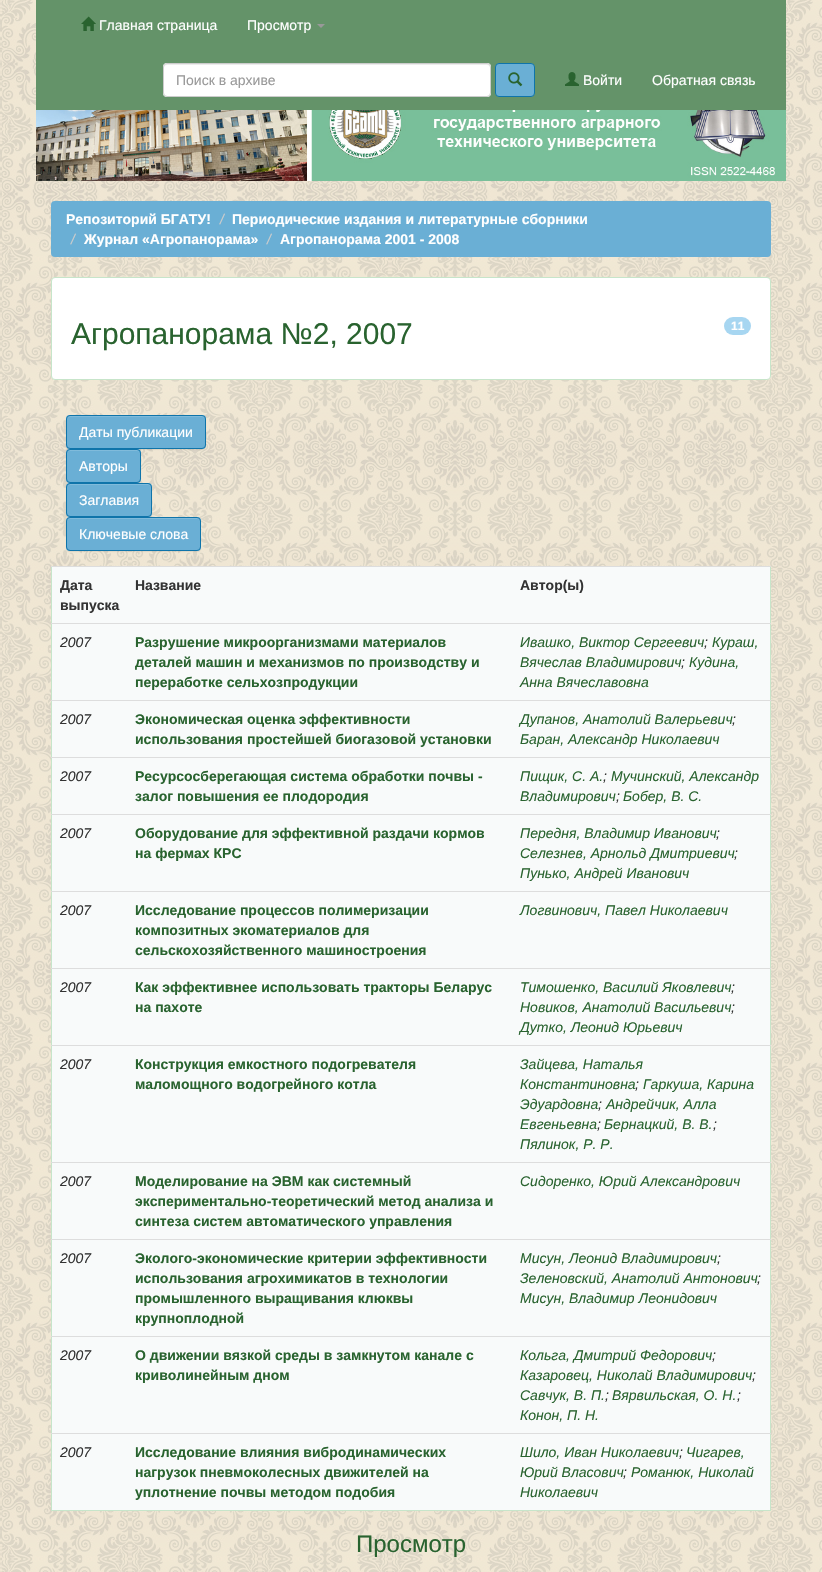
void draw(SkCanvas* canvas) {
	SkPaint fill;
	fill.setAntiAlias(true);
	auto makeFont = [&](const char* family, int weight, float size, bool italic = false) {
		SkFontStyle style(weight, SkFontStyle::kNormal_Width,
			italic ? SkFontStyle::kItalic_Slant : SkFontStyle::kUpright_Slant);
		SkFont result(fontMgr->matchFamilyStyle(family, style), size);
		result.setSubpixel(true);
		return result;
	};
	auto text = [&](const char* s, float x, float y, const SkFont& font) {
		canvas->drawString(s, x, y, font, fill);
	};
	auto box = [&](float l, float t, float r, float b) {
		canvas->drawRect(SkRect::MakeLTRB(l, t, r, b), fill);
	};
	auto roundBox = [&](float l, float t, float r, float b, float radius) {
		canvas->drawRoundRect(SkRect::MakeLTRB(l, t, r, b), radius, radius, fill);
	};
	auto picture = [&](const char* path, float l, float t, float r, float b) {
		auto image = SkImages::DeferredFromEncodedData(SkData::MakeFromFileName(path));
		canvas->drawImageRect(image, SkRect::MakeLTRB(l, t, r, b), SkSamplingOptions());
	};
	canvas->clear(0xFFFFFFFF);
	picture("image0.png", 0, 0, 822, 1572);
	fill.setColor(0xFF649369);
	box(36, 0, 786, 110);
	picture("image1.png", 81, 16, 96, 31);
	fill.setColor(0xFF999999);
	canvas->drawPath(SkPathBuilder().moveTo(317, 24).lineTo(325, 24).lineTo(321, 28).close().detach(), fill);
	fill.setColor(0xFFFFFFFF);
	roundBox(163, 63, 491, 97, 4);
	fill.setColor(0xFFECECEC);
	canvas->drawPath(SkPathBuilder().moveTo(167, 65).lineTo(487, 65).cubicTo(489, 65, 490, 66, 490, 68).cubicTo(490, 66, 489, 64, 487, 64).lineTo(167, 64).cubicTo(165, 64, 164, 66, 164, 68).cubicTo(164, 66, 165, 65, 167, 65).close().detach(), fill);
	fill.setStyle(SkPaint::kStroke_Style);
	fill.setStrokeWidth(1);
	fill.setColor(0xFFCCCCCC);
	canvas->drawRoundRect(SkRect::MakeLTRB(163.5f, 63.5f, 490.5f, 96.5f), 3.5f, 3.5f, fill);
	fill.setStyle(SkPaint::kFill_Style);
	fill.setColor(0xFF6AAFD5);
	canvas->drawRoundRect(SkRect::MakeLTRB(495.5f, 63.5f, 534.5f, 96.5f), 3.5f, 3.5f, fill);
	fill.setStyle(SkPaint::kStroke_Style);
	fill.setColor(0xFF0F74AA);
	canvas->drawRoundRect(SkRect::MakeLTRB(495.5f, 63.5f, 534.5f, 96.5f), 3.5f, 3.5f, fill);
	picture("image2.png", 508, 72, 523, 87);
	picture("image3.png", 565, 72, 579, 86);
	picture("image4.png", 36, 110, 786, 181);
	fill.setStyle(SkPaint::kFill_Style);
	fill.setColor(0xFF6AAFD5);
	roundBox(51, 201, 771, 257, 4);
	fill.setColor(0xFFFFFFFF);
	canvas->drawRoundRect(SkRect::MakeLTRB(51.5f, 277.5f, 770.5f, 379.5f), 3.5f, 3.5f, fill);
	fill.setStyle(SkPaint::kStroke_Style);
	fill.setColor(0xFFC7E5CA);
	canvas->drawRoundRect(SkRect::MakeLTRB(51.5f, 277.5f, 770.5f, 379.5f), 3.5f, 3.5f, fill);
	fill.setStyle(SkPaint::kFill_Style);
	fill.setColor(0xFFA7D6F1);
	roundBox(724, 317, 751, 335, 9);
	fill.setColor(0x12000000);
	fill.setMaskFilter(SkMaskFilter::MakeBlur(kNormal_SkBlurStyle, 0.5f));
	canvas->drawRoundRect(SkRect::MakeLTRB(66, 416, 206, 450), 4, 4, fill);
	fill.setMaskFilter(nullptr);
	fill.setColor(0xFF6AAFD5);
	roundBox(66, 415, 206, 449, 4);
	fill.setColor(0xFF80BBDB);
	canvas->drawPath(SkPathBuilder().moveTo(70, 417).lineTo(202, 417).cubicTo(204, 417, 205, 418, 205, 420).cubicTo(205, 418, 205, 416, 203, 416).lineTo(69, 416).cubicTo(67, 416, 67, 418, 67, 420).cubicTo(67, 418, 68, 417, 70, 417).close().detach(), fill);
	fill.setStyle(SkPaint::kStroke_Style);
	fill.setColor(0xFF0F74AA);
	canvas->drawRoundRect(SkRect::MakeLTRB(66.5f, 415.5f, 205.5f, 448.5f), 3.5f, 3.5f, fill);
	fill.setStyle(SkPaint::kFill_Style);
	fill.setColor(0x12000000);
	fill.setMaskFilter(SkMaskFilter::MakeBlur(kNormal_SkBlurStyle, 0.5f));
	canvas->drawRoundRect(SkRect::MakeLTRB(66, 450, 141, 484), 4, 4, fill);
	fill.setMaskFilter(nullptr);
	fill.setColor(0xFF6AAFD5);
	roundBox(66, 449, 141, 483, 4);
	fill.setColor(0xFF80BBDB);
	canvas->drawPath(SkPathBuilder().moveTo(70, 451).lineTo(137, 451).cubicTo(139, 451, 140, 452, 140, 454).cubicTo(140, 447, 130, 450, 126, 450).lineTo(81, 450).cubicTo(77, 450, 67, 447, 67, 454).cubicTo(67, 452, 68, 451, 70, 451).close().detach(), fill);
	fill.setStyle(SkPaint::kStroke_Style);
	fill.setColor(0xFF0F74AA);
	canvas->drawRoundRect(SkRect::MakeLTRB(66.5f, 449.5f, 140.5f, 482.5f), 3.5f, 3.5f, fill);
	fill.setStyle(SkPaint::kFill_Style);
	fill.setColor(0x12000000);
	fill.setMaskFilter(SkMaskFilter::MakeBlur(kNormal_SkBlurStyle, 0.5f));
	canvas->drawRoundRect(SkRect::MakeLTRB(66, 484, 152, 518), 4, 4, fill);
	fill.setMaskFilter(nullptr);
	fill.setColor(0xFF6AAFD5);
	roundBox(66, 483, 152, 517, 4);
	fill.setColor(0xFF80BBDB);
	canvas->drawPath(SkPathBuilder().moveTo(70, 485).lineTo(148, 485).cubicTo(150, 485, 151, 486, 151, 488).cubicTo(151, 481, 139, 484, 135, 484).lineTo(83, 484).cubicTo(79, 484, 67, 481, 67, 488).cubicTo(67, 486, 68, 485, 70, 485).close().detach(), fill);
	fill.setStyle(SkPaint::kStroke_Style);
	fill.setColor(0xFF0F74AA);
	canvas->drawRoundRect(SkRect::MakeLTRB(66.5f, 483.5f, 151.5f, 516.5f), 3.5f, 3.5f, fill);
	fill.setStyle(SkPaint::kFill_Style);
	fill.setColor(0x12000000);
	fill.setMaskFilter(SkMaskFilter::MakeBlur(kNormal_SkBlurStyle, 0.5f));
	canvas->drawRoundRect(SkRect::MakeLTRB(66, 518, 201, 552), 4, 4, fill);
	fill.setMaskFilter(nullptr);
	fill.setColor(0xFF6AAFD5);
	roundBox(66, 517, 201, 551, 4);
	fill.setColor(0xFF80BBDB);
	canvas->drawPath(SkPathBuilder().moveTo(70, 519).lineTo(197, 519).cubicTo(199, 519, 200, 520, 200, 522).cubicTo(200, 520, 200, 518, 198, 518).lineTo(69, 518).cubicTo(67, 518, 67, 520, 67, 522).cubicTo(67, 520, 68, 519, 70, 519).close().detach(), fill);
	fill.setStyle(SkPaint::kStroke_Style);
	fill.setColor(0xFF0F74AA);
	canvas->drawRoundRect(SkRect::MakeLTRB(66.5f, 517.5f, 200.5f, 550.5f), 3.5f, 3.5f, fill);
	fill.setStyle(SkPaint::kFill_Style);
	fill.setColor(0xFFF8FAFA);
	box(52, 567, 770, 1510);
	fill.setColor(0xFFC7E5CA);
	box(770, 566, 771, 1511);
	box(51, 1510, 771, 1511);
	box(51, 566, 52, 1511);
	fill.setColor(0xFFDDDDDD);
	box(51, 566, 771, 567);
	box(51, 623, 771, 624);
	box(51, 700, 771, 701);
	box(51, 757, 771, 758);
	box(51, 814, 771, 815);
	box(51, 891, 771, 892);
	box(51, 968, 771, 969);
	box(51, 1045, 771, 1046);
	box(51, 1162, 771, 1163);
	box(51, 1239, 771, 1240);
	box(51, 1336, 771, 1337);
	box(51, 1433, 771, 1434);
	auto font1 = makeFont("Liberation Sans", 400, 14);
	fill.setColor(0xFFFFFFFF);
	text("Главная страница", 99, 30, font1);
	text("Просмотр", 247, 30, font1);
	fill.setColor(0xFF999999);
	text("Поиск в архиве", 176, 85, font1);
	fill.setColor(0xFFFFFFFF);
	text("Войти", 583, 85, font1);
	text("Обратная связь", 652, 85, font1);
	auto font2 = makeFont("Liberation Sans", 700, 14);
	text("Репозиторий БГАТУ!", 66, 224, font2);
	auto font3 = makeFont("Liberation Sans", 400, 14, true);
	fill.setColor(0xFFCCCCCC);
	text("/", 220, 224, font3);
	fill.setColor(0xFFFFFFFF);
	text("Периодические издания и литературные сборники", 232, 224, font2);
	fill.setColor(0xFFCCCCCC);
	text("/", 71, 244, font3);
	fill.setColor(0xFFFFFFFF);
	text("Журнал «Агропанорама»", 84, 244, font2);
	fill.setColor(0xFFCCCCCC);
	text("/", 267, 244, font3);
	fill.setColor(0xFFFFFFFF);
	text("Агропанорама 2001 - 2008", 280, 244, font2);
	auto font4 = makeFont("Liberation Sans", 400, 30);
	fill.setColor(0xFF29632F);
	text("Агропанорама №2, 2007", 71, 344, font4);
	auto font5 = makeFont("Liberation Sans", 700, 12);
	fill.setColor(0xFFFFFFFF);
	text("11", 731, 330, font5);
	text("Даты публикации", 79, 437, font1);
	text("Авторы", 79, 471, font1);
	text("Заглавия", 79, 505, font1);
	text("Ключевые слова", 79, 539, font1);
	fill.setColor(0xFF333333);
	text("Дата", 60, 590, font2);
	text("выпуска", 60, 610, font2);
	text("Название", 135, 590, font2);
	text("Автор(ы)", 520, 590, font2);
	text("2007", 60, 647, font3);
	fill.setColor(0xFF29632F);
	text("Разрушение микроорганизмами материалов", 135, 647, font2);
	text("деталей машин и механизмов по производству и", 135, 667, font2);
	text("переработке сельхозпродукции", 135, 687, font2);
	text("Ивашко, Виктор Сергеевич", 520, 647, font3);
	fill.setColor(0xFF333333);
	text(";", 704, 647, font3);
	fill.setColor(0xFF29632F);
	text("Кураш,", 712, 647, font3);
	text("Вячеслав Владимирович", 520, 667, font3);
	fill.setColor(0xFF333333);
	text(";", 681, 667, font3);
	fill.setColor(0xFF29632F);
	text("Кудина,", 689, 667, font3);
	text("Анна Вячеславовна", 520, 687, font3);
	fill.setColor(0xFF333333);
	text("2007", 60, 724, font3);
	fill.setColor(0xFF29632F);
	text("Экономическая оценка эффективности", 135, 724, font2);
	text("использования простейшей биогазовой установки", 135, 744, font2);
	text("Дупанов, Анатолий Валерьевич", 520, 724, font3);
	fill.setColor(0xFF333333);
	text(";", 732, 724, font3);
	fill.setColor(0xFF29632F);
	text("Баран, Александр Николаевич", 520, 744, font3);
	fill.setColor(0xFF333333);
	text("2007", 60, 781, font3);
	fill.setColor(0xFF29632F);
	text("Ресурсосберегающая система обработки почвы -", 135, 781, font2);
	text("залог повышения ее плодородия", 135, 801, font2);
	text("Пищик, С. А.", 520, 781, font3);
	fill.setColor(0xFF333333);
	text(";", 603, 781, font3);
	fill.setColor(0xFF29632F);
	text("Мучинский, Александр", 611, 781, font3);
	text("Владимирович", 520, 801, font3);
	fill.setColor(0xFF333333);
	text(";", 616, 801, font3);
	fill.setColor(0xFF29632F);
	text("Бобер, B. C.", 623, 801, font3);
	fill.setColor(0xFF333333);
	text("2007", 60, 838, font3);
	fill.setColor(0xFF29632F);
	text("Оборудование для эффективной раздачи кормов", 135, 838, font2);
	text("на фермах КРС", 135, 858, font2);
	text("Передня, Владимир Иванович", 520, 838, font3);
	fill.setColor(0xFF333333);
	text(";", 716, 838, font3);
	fill.setColor(0xFF29632F);
	text("Селезнев, Арнольд Дмитриевич", 520, 858, font3);
	fill.setColor(0xFF333333);
	text(";", 734, 858, font3);
	fill.setColor(0xFF29632F);
	text("Пунько, Андрей Иванович", 520, 878, font3);
	fill.setColor(0xFF333333);
	text("2007", 60, 915, font3);
	fill.setColor(0xFF29632F);
	text("Исследование процессов полимеризации", 135, 915, font2);
	text("композитных экоматериалов для", 135, 935, font2);
	text("сельскохозяйственного машиностроения", 135, 955, font2);
	text("Логвинович, Павел Николаевич", 520, 915, font3);
	fill.setColor(0xFF333333);
	text("2007", 60, 992, font3);
	fill.setColor(0xFF29632F);
	text("Как эффективнее использовать тракторы Беларус", 135, 992, font2);
	text("на пахоте", 135, 1012, font2);
	text("Тимошенко, Василий Яковлевич", 520, 992, font3);
	fill.setColor(0xFF333333);
	text(";", 731, 992, font3);
	fill.setColor(0xFF29632F);
	text("Новиков, Анатолий Васильевич", 520, 1012, font3);
	fill.setColor(0xFF333333);
	text(";", 731, 1012, font3);
	fill.setColor(0xFF29632F);
	text("Дутко, Леонид Юрьевич", 520, 1032, font3);
	fill.setColor(0xFF333333);
	text("2007", 60, 1069, font3);
	fill.setColor(0xFF29632F);
	text("Конструкция емкостного подогревателя", 135, 1069, font2);
	text("маломощного водогрейного котла", 135, 1089, font2);
	text("Зайцева, Наталья", 520, 1069, font3);
	text("Константиновна", 520, 1089, font3);
	fill.setColor(0xFF333333);
	text(";", 635, 1089, font3);
	fill.setColor(0xFF29632F);
	text("Гаркуша, Карина", 643, 1089, font3);
	text("Эдуардовна", 520, 1109, font3);
	fill.setColor(0xFF333333);
	text(";", 598, 1109, font3);
	fill.setColor(0xFF29632F);
	text("Андрейчик, Алла", 606, 1109, font3);
	text("Евгеньевна", 520, 1129, font3);
	fill.setColor(0xFF333333);
	text(";", 597, 1129, font3);
	fill.setColor(0xFF29632F);
	text("Бернацкий, В. В.", 604, 1129, font3);
	fill.setColor(0xFF333333);
	text(";", 713, 1129, font3);
	fill.setColor(0xFF29632F);
	text("Пялинок, Р. Р.", 520, 1149, font3);
	fill.setColor(0xFF333333);
	text("2007", 60, 1186, font3);
	fill.setColor(0xFF29632F);
	text("Моделирование на ЭВМ как системный", 135, 1186, font2);
	text("экспериментально-теоретический метод анализа и", 135, 1206, font2);
	text("синтеза систем автоматического управления", 135, 1226, font2);
	text("Сидоренко, Юрий Александрович", 520, 1186, font3);
	fill.setColor(0xFF333333);
	text("2007", 60, 1263, font3);
	fill.setColor(0xFF29632F);
	text("Эколого-экономические критерии эффективности", 135, 1263, font2);
	text("использования агрохимикатов в технологии", 135, 1283, font2);
	text("промышленного выращивания клюквы", 135, 1303, font2);
	text("крупноплодной", 135, 1323, font2);
	text("Мисун, Леонид Владимирович", 520, 1263, font3);
	fill.setColor(0xFF333333);
	text(";", 717, 1263, font3);
	fill.setColor(0xFF29632F);
	text("Зеленовский, Анатолий Антонович", 520, 1283, font3);
	fill.setColor(0xFF333333);
	text(";", 757, 1283, font3);
	fill.setColor(0xFF29632F);
	text("Мисун, Владимир Леонидович", 520, 1303, font3);
	fill.setColor(0xFF333333);
	text("2007", 60, 1360, font3);
	fill.setColor(0xFF29632F);
	text("О движении вязкой среды в замкнутом канале с", 135, 1360, font2);
	text("криволинейным дном", 135, 1380, font2);
	text("Кольга, Дмитрий Федорович", 520, 1360, font3);
	fill.setColor(0xFF333333);
	text(";", 712, 1360, font3);
	fill.setColor(0xFF29632F);
	text("Казаровец, Николай Владимирович", 520, 1380, font3);
	fill.setColor(0xFF333333);
	text(";", 752, 1380, font3);
	fill.setColor(0xFF29632F);
	text("Савчук, В. П.", 520, 1400, font3);
	fill.setColor(0xFF333333);
	text(";", 605, 1400, font3);
	fill.setColor(0xFF29632F);
	text("Вярвильская, О. Н.", 612, 1400, font3);
	fill.setColor(0xFF333333);
	text(";", 737, 1400, font3);
	fill.setColor(0xFF29632F);
	text("Конон, П. Н.", 520, 1420, font3);
	fill.setColor(0xFF333333);
	text("2007", 60, 1457, font3);
	fill.setColor(0xFF29632F);
	text("Исследование влияния вибродинамических", 135, 1457, font2);
	text("нагрузок пневмоколесных движителей на", 135, 1477, font2);
	text("уплотнение почвы методом подобия", 135, 1497, font2);
	text("Шило, Иван Николаевич", 520, 1457, font3);
	fill.setColor(0xFF333333);
	text(";", 679, 1457, font3);
	fill.setColor(0xFF29632F);
	text("Чигарев,", 686, 1457, font3);
	text("Юрий Власович", 520, 1477, font3);
	fill.setColor(0xFF333333);
	text(";", 623, 1477, font3);
	fill.setColor(0xFF29632F);
	text("Романюк, Николай", 631, 1477, font3);
	text("Николаевич", 520, 1497, font3);
	auto font6 = makeFont("Liberation Sans", 400, 24);
	text("Просмотр", 356, 1552, font6);
}
